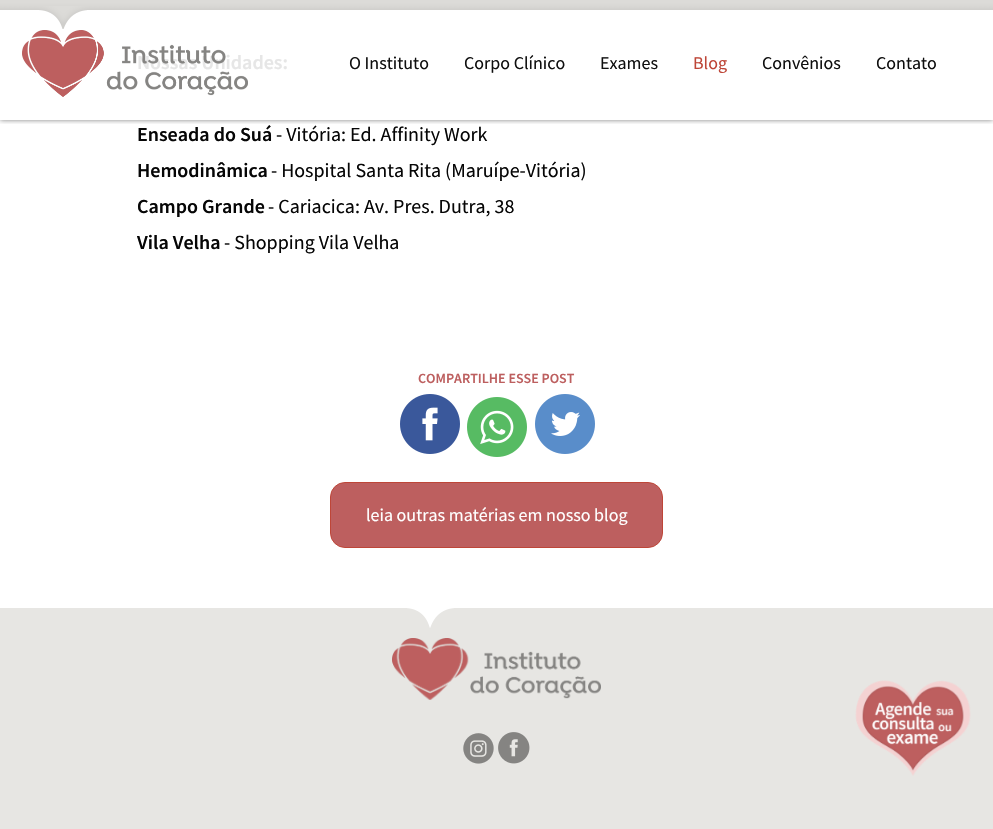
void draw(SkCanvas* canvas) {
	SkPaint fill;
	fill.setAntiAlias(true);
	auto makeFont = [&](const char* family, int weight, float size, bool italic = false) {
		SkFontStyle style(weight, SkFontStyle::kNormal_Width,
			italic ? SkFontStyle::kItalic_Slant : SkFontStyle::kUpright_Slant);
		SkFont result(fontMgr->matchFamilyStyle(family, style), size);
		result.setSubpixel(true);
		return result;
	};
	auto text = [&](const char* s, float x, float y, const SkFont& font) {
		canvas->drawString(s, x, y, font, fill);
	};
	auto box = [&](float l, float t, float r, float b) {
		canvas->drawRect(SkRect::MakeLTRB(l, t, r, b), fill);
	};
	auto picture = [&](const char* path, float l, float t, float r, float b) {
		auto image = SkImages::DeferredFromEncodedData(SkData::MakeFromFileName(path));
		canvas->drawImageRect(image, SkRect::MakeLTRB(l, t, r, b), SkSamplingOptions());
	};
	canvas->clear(0xFFFFFFFF);
	picture("image0.png", 400, 394, 460, 454);
	picture("image1.png", 467, 397, 527, 457);
	picture("image2.png", 535, 394, 595, 454);
	fill.setColor(0xFFBD5F5F);
	canvas->drawRoundRect(SkRect::MakeLTRB(330.5f, 482.5f, 662.5f, 547.5f), 14.5f, 14.5f, fill);
	fill.setStyle(SkPaint::kStroke_Style);
	fill.setStrokeWidth(1);
	fill.setColor(0xFFBE4638);
	canvas->drawRoundRect(SkRect::MakeLTRB(330.5f, 482.5f, 662.5f, 547.5f), 14.5f, 14.5f, fill);
	canvas->save();
	canvas->clipRect(SkRect::MakeLTRB(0, 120, 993, 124));
	fill.setStyle(SkPaint::kFill_Style);
	fill.setColor(0x80000000);
	fill.setMaskFilter(SkMaskFilter::MakeBlur(kNormal_SkBlurStyle, 2.5f));
	canvas->drawRect(SkRect::MakeLTRB(0, 0, 993, 120), fill);
	fill.setMaskFilter(nullptr);
	canvas->restore();
	picture("image3.png", 0, 0, 993, 10);
	picture("image4.png", 39, 6, 87, 29);
	picture("image5.png", 22, 30, 104, 97);
	fill.setColor(0xFFE7E6E3);
	box(0, 608, 993, 829);
	picture("image7.png", 407, 608, 454, 628);
	picture("image8.png", 392, 638, 469, 700);
	picture("image9.png", 470, 651, 601, 699);
	picture("image10.png", 463, 733, 494, 764);
	picture("image11.png", 498, 732, 530, 764);
	picture("image12.png", 855, 680, 971, 776);
	auto font1 = makeFont("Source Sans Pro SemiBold", 600, 20);
	fill.setColor(0xFFE6E6E6);
	text("Nossas Unidades:", 137, 69, font1);
	fill.setColor(0xFF060606);
	text("Enseada do Suá", 137, 141, font1);
	auto font2 = makeFont("Source Sans Pro", 400, 20);
	text("- Vitória: Ed. Affinity Work", 276, 141, font2);
	text("Hemodinâmica", 137, 177, font1);
	text("- Hospital Santa Rita (Maruípe-Vitória)", 271, 177, font2);
	text("Campo Grande", 137, 213, font1);
	text("- Cariacica: Av. Pres. Dutra, 38", 268, 213, font2);
	text("Vila Velha", 137, 249, font1);
	text("- Shopping Vila Velha", 224, 249, font2);
	auto font3 = makeFont("Source Sans Pro SemiBold", 600, 14);
	fill.setColor(0xFFBD5F5F);
	text("COMPARTILHE ESSE POST", 418, 383, font3);
	auto font4 = makeFont("Source Sans Pro", 400, 18);
	fill.setColor(0xFFFFFFFF);
	text("leia outras matérias em nosso blog", 366, 521, font4);
	picture("image6.png", 106, 44, 248, 96);
	fill.setColor(0xFF0F0F0F);
	text("O Instituto", 349, 69, font4);
	text("Corpo Clínico", 464, 69, font4);
	text("Exames", 600, 69, font4);
	fill.setColor(0xFFBE4638);
	text("Blog", 693, 69, font4);
	fill.setColor(0xFF0F0F0F);
	text("Convênios", 762, 69, font4);
	text("Contato", 876, 69, font4);
}
